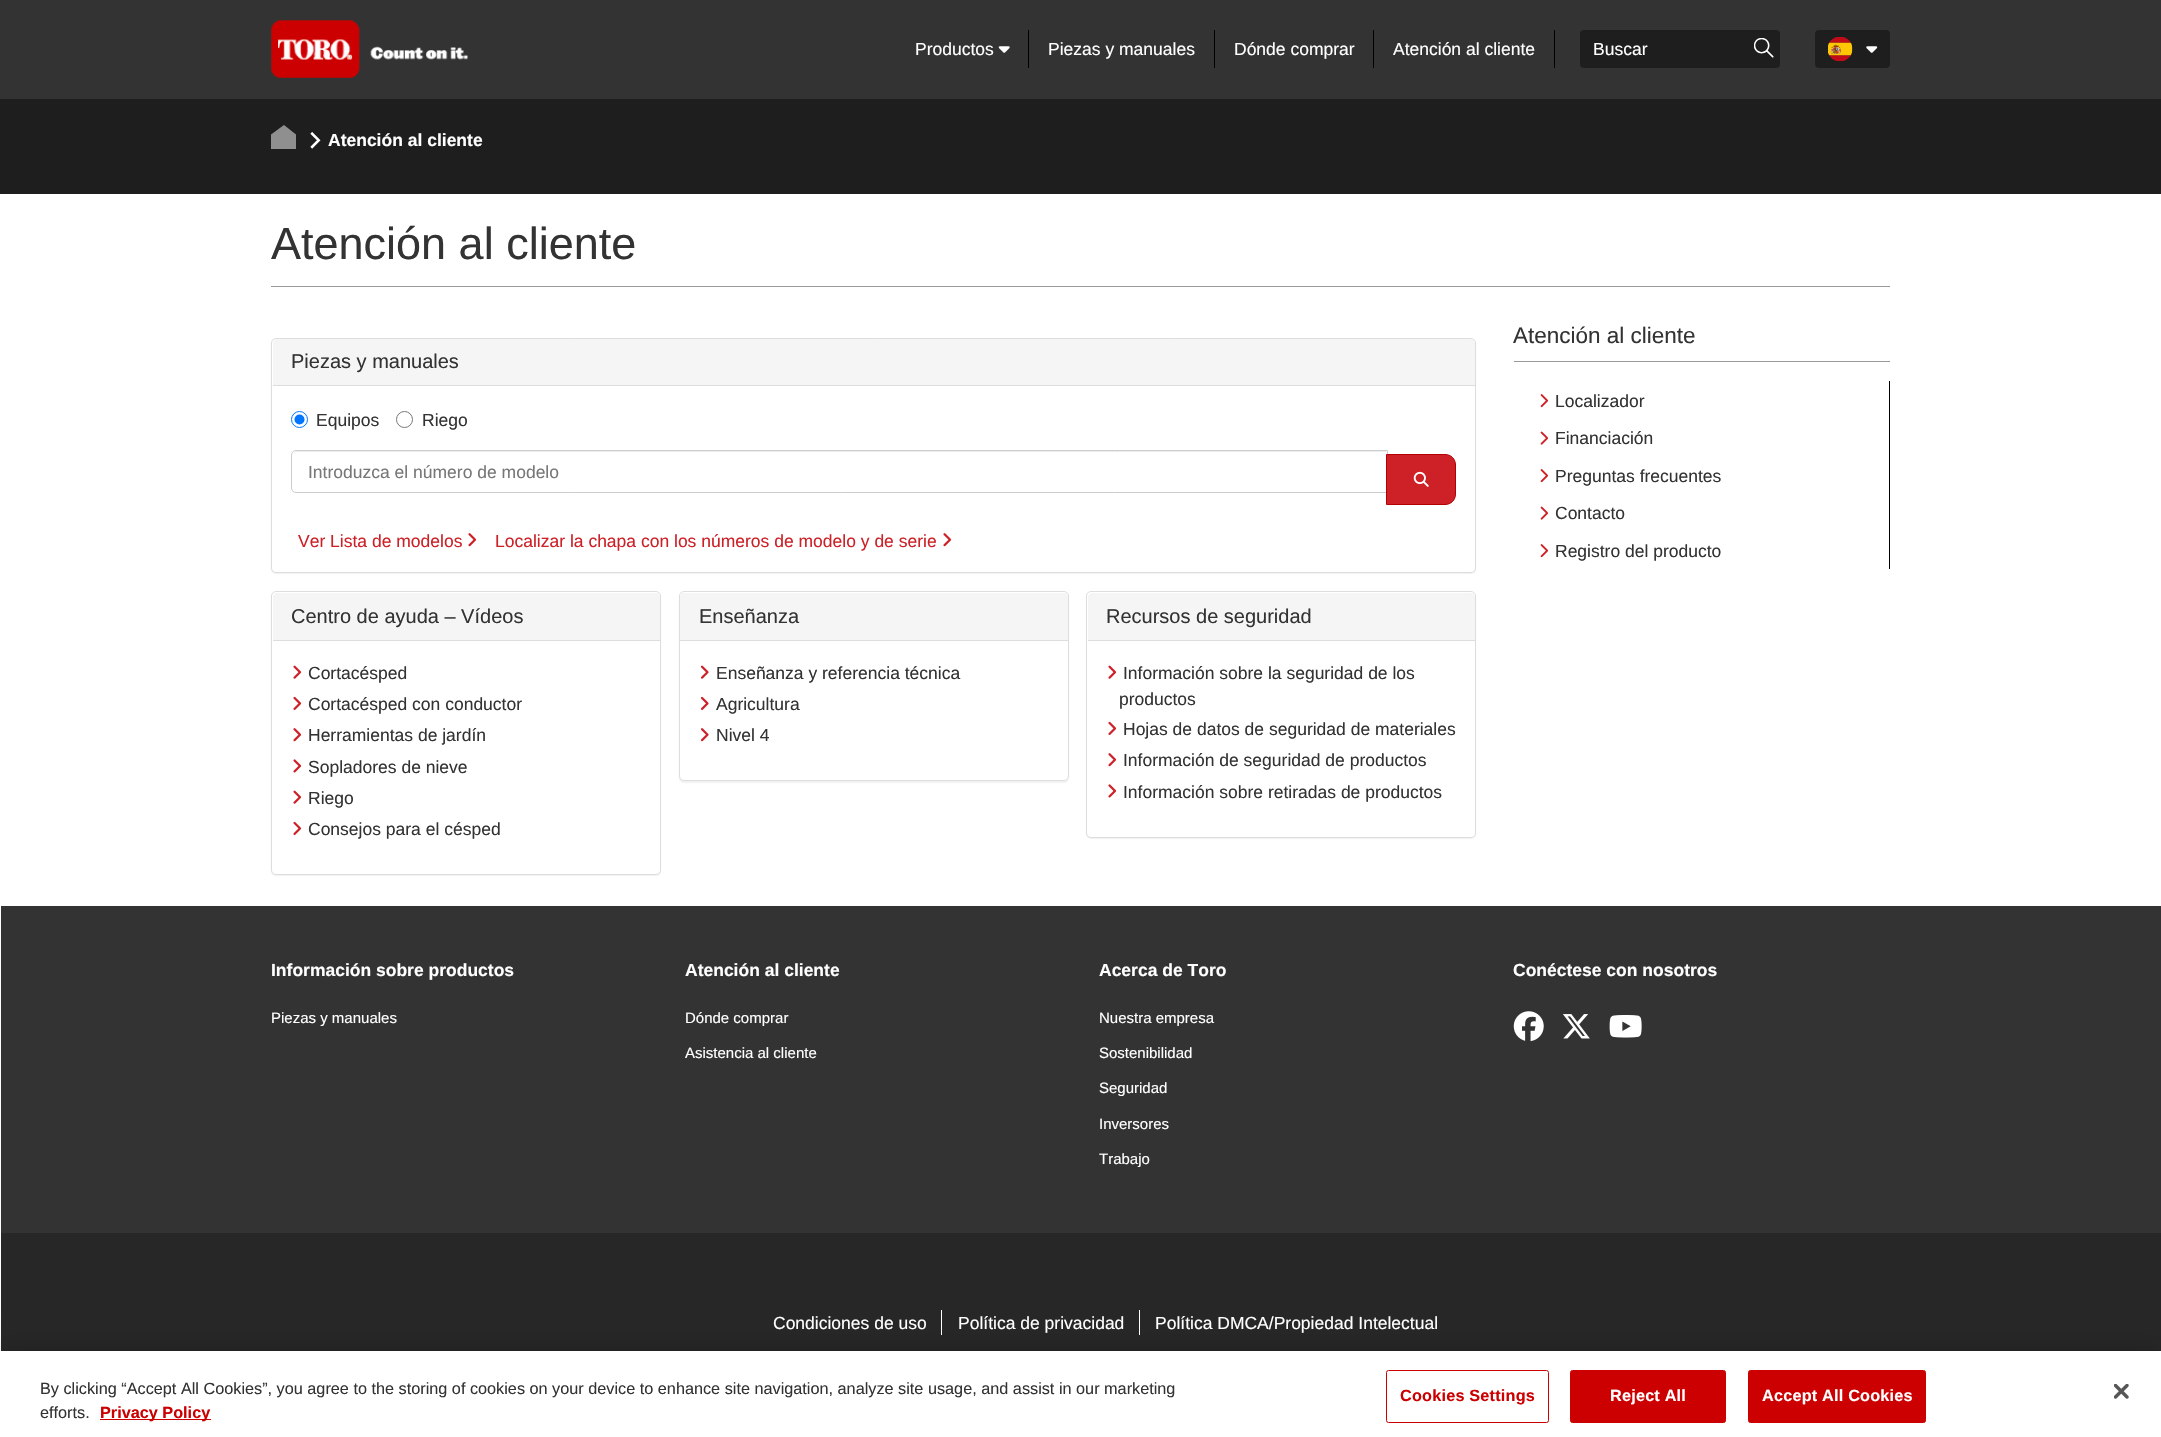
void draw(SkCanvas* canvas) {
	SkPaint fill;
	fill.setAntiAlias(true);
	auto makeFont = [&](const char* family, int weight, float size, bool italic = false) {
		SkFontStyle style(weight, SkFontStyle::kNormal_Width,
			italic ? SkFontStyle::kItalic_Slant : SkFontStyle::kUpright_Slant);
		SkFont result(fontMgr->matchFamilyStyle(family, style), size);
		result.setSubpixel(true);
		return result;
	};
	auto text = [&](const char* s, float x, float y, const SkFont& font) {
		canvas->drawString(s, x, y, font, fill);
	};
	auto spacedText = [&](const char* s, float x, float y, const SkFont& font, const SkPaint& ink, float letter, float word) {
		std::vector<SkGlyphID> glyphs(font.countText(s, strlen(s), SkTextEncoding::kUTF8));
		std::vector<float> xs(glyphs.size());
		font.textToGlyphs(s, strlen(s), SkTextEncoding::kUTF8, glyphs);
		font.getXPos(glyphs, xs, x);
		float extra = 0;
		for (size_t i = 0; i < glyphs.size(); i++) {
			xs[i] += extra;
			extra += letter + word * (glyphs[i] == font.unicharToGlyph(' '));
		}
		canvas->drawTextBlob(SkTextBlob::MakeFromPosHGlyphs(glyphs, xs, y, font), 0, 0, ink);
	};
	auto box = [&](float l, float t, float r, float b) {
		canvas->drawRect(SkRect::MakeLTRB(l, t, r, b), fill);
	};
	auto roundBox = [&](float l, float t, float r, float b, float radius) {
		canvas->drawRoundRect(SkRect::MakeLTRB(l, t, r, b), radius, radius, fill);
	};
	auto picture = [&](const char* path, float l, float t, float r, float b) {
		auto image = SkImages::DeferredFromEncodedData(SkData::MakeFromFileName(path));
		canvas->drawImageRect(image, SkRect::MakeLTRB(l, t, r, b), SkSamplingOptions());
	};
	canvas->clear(0xFFFFFFFF);
	fill.setColor(0xFF333333);
	box(0, 0, 2161, 99);
	picture("image0.png", 271, 20, 468, 78);
	fill.setColor(0xFF000000);
	box(1028, 30, 1029, 68);
	picture("image1.png", 998, 46, 1010, 53);
	box(1214, 30, 1215, 68);
	box(1373, 30, 1374, 68);
	box(1554, 30, 1555, 68);
	fill.setColor(0xFF1E1E1E);
	roundBox(1580, 30, 1780, 68, 4);
	picture("image2.png", 1754, 38, 1774, 58);
	roundBox(1815, 30, 1890, 68, 4);
	picture("image3.png", 1828, 37, 1853, 62);
	picture("image4.png", 1866, 46, 1878, 53);
	box(0, 99, 2161, 194);
	fill.setColor(0xFF8F8F8F);
	canvas->drawPath(SkPathBuilder().moveTo(271, 149).lineTo(271, 134.5f).lineTo(284, 125).lineTo(296, 134.5f).lineTo(296, 149).close().detach(), fill);
	picture("image5.png", 310, 132, 321, 149);
	fill.setColor(0xFF999999);
	box(271, 286, 1890, 287);
	fill.setColor(0x0D000000);
	fill.setMaskFilter(SkMaskFilter::MakeBlur(kNormal_SkBlurStyle, 0.5f));
	canvas->drawRoundRect(SkRect::MakeLTRB(271, 339, 1476, 574), 5, 5, fill);
	fill.setMaskFilter(nullptr);
	fill.setColor(0xFFFFFFFF);
	canvas->drawRoundRect(SkRect::MakeLTRB(271.5f, 338.5f, 1475.5f, 572.5f), 4.5f, 4.5f, fill);
	fill.setStyle(SkPaint::kStroke_Style);
	fill.setStrokeWidth(1);
	fill.setColor(0xFFDDDDDD);
	canvas->drawRoundRect(SkRect::MakeLTRB(271.5f, 338.5f, 1475.5f, 572.5f), 4.5f, 4.5f, fill);
	fill.setStyle(SkPaint::kFill_Style);
	fill.setColor(0xFFF5F5F5);
	canvas->drawPath(SkPathBuilder().moveTo(277, 339).lineTo(1471, 339).cubicTo(1473, 339, 1475, 341, 1475, 343).lineTo(1475, 386).lineTo(273, 386).lineTo(273, 343).cubicTo(273, 341, 275, 339, 277, 339).close().detach(), fill);
	fill.setColor(0xFFDDDDDD);
	box(273, 385, 1475, 386);
	fill.setStyle(SkPaint::kStroke_Style);
	fill.setColor(0xFF0075FF);
	canvas->drawCircle(299.5f, 419.5f, 8, fill);
	fill.setStyle(SkPaint::kFill_Style);
	canvas->drawCircle(299.5f, 419.5f, 5, fill);
	fill.setStyle(SkPaint::kStroke_Style);
	fill.setColor(0xFF767676);
	canvas->drawCircle(404.5f, 419.5f, 8, fill);
	fill.setStyle(SkPaint::kFill_Style);
	fill.setColor(0xFFECECEC);
	canvas->drawPath(SkPathBuilder().moveTo(296, 452).lineTo(1386, 452).lineTo(1386, 451).lineTo(297, 451).cubicTo(296, 451, 294, 452, 294, 453).close().detach(), fill);
	fill.setStyle(SkPaint::kStroke_Style);
	fill.setColor(0xFFCCCCCC);
	canvas->drawPath(SkPathBuilder().moveTo(296, 450.5f).lineTo(1387.5f, 450.5f).lineTo(1387.5f, 492.5f).lineTo(296, 492.5f).cubicTo(293.5f, 492.5f, 291.5f, 490.5f, 291.5f, 488).lineTo(291.5f, 455).cubicTo(291.5f, 452.5f, 293.5f, 450.5f, 296, 450.5f).close().detach(), fill);
	fill.setStyle(SkPaint::kFill_Style);
	fill.setColor(0xFFCD2027);
	canvas->drawPath(SkPathBuilder().moveTo(1386.5f, 454.5f).lineTo(1445, 454.5f).cubicTo(1451, 454.5f, 1455.5f, 459, 1455.5f, 465).lineTo(1455.5f, 494).cubicTo(1455.5f, 500, 1451, 504.5f, 1445, 504.5f).lineTo(1386.5f, 504.5f).close().detach(), fill);
	fill.setStyle(SkPaint::kStroke_Style);
	fill.setColor(0xFFB30000);
	canvas->drawPath(SkPathBuilder().moveTo(1386.5f, 454.5f).lineTo(1445, 454.5f).cubicTo(1451, 454.5f, 1455.5f, 459, 1455.5f, 465).lineTo(1455.5f, 494).cubicTo(1455.5f, 500, 1451, 504.5f, 1445, 504.5f).lineTo(1386.5f, 504.5f).close().detach(), fill);
	picture("image6.png", 1413, 471, 1429, 487);
	picture("image7.png", 468, 533, 477, 547);
	picture("image7.png", 943, 533, 952, 547);
	fill.setStyle(SkPaint::kFill_Style);
	fill.setColor(0x0D000000);
	fill.setMaskFilter(SkMaskFilter::MakeBlur(kNormal_SkBlurStyle, 0.5f));
	canvas->drawRoundRect(SkRect::MakeLTRB(271, 593, 661, 876), 5, 5, fill);
	fill.setMaskFilter(nullptr);
	fill.setColor(0xFFFFFFFF);
	canvas->drawRoundRect(SkRect::MakeLTRB(271.5f, 591.5f, 660.5f, 874.5f), 4.5f, 4.5f, fill);
	fill.setStyle(SkPaint::kStroke_Style);
	fill.setColor(0xFFDDDDDD);
	canvas->drawRoundRect(SkRect::MakeLTRB(271.5f, 591.5f, 660.5f, 874.5f), 4.5f, 4.5f, fill);
	fill.setStyle(SkPaint::kFill_Style);
	fill.setColor(0xFFF5F5F5);
	canvas->drawPath(SkPathBuilder().moveTo(277, 593).lineTo(656, 593).cubicTo(658, 593, 660, 595, 660, 597).lineTo(660, 641).lineTo(273, 641).lineTo(273, 597).cubicTo(273, 595, 275, 593, 277, 593).close().detach(), fill);
	fill.setColor(0xFFDDDDDD);
	box(273, 640, 660, 641);
	picture("image8.png", 293, 665, 302, 679);
	picture("image9.png", 293, 696, 302, 710);
	picture("image7.png", 293, 728, 302, 742);
	picture("image10.png", 293, 759, 302, 773);
	picture("image8.png", 293, 790, 302, 804);
	picture("image9.png", 293, 821, 302, 835);
	fill.setColor(0x0D000000);
	fill.setMaskFilter(SkMaskFilter::MakeBlur(kNormal_SkBlurStyle, 0.5f));
	canvas->drawRoundRect(SkRect::MakeLTRB(679, 593, 1069, 783), 5, 5, fill);
	fill.setMaskFilter(nullptr);
	fill.setColor(0xFFFFFFFF);
	canvas->drawRoundRect(SkRect::MakeLTRB(679.5f, 591.5f, 1068.5f, 780.5f), 4.5f, 4.5f, fill);
	fill.setStyle(SkPaint::kStroke_Style);
	fill.setColor(0xFFDDDDDD);
	canvas->drawRoundRect(SkRect::MakeLTRB(679.5f, 591.5f, 1068.5f, 780.5f), 4.5f, 4.5f, fill);
	fill.setStyle(SkPaint::kFill_Style);
	fill.setColor(0xFFF5F5F5);
	canvas->drawPath(SkPathBuilder().moveTo(684, 593).lineTo(1064, 593).cubicTo(1066, 593, 1068, 595, 1068, 597).lineTo(1068, 641).lineTo(680, 641).lineTo(680, 597).cubicTo(680, 595, 682, 593, 684, 593).close().detach(), fill);
	fill.setColor(0xFFDDDDDD);
	box(680, 640, 1068, 641);
	picture("image11.png", 700, 665, 709, 679);
	picture("image12.png", 701, 696, 709, 710);
	picture("image13.png", 701, 728, 709, 742);
	fill.setColor(0x0D000000);
	fill.setMaskFilter(SkMaskFilter::MakeBlur(kNormal_SkBlurStyle, 0.5f));
	canvas->drawRoundRect(SkRect::MakeLTRB(1086, 593, 1476, 839), 5, 5, fill);
	fill.setMaskFilter(nullptr);
	fill.setColor(0xFFFFFFFF);
	canvas->drawRoundRect(SkRect::MakeLTRB(1086.5f, 591.5f, 1475.5f, 837.5f), 4.5f, 4.5f, fill);
	fill.setStyle(SkPaint::kStroke_Style);
	fill.setColor(0xFFDDDDDD);
	canvas->drawRoundRect(SkRect::MakeLTRB(1086.5f, 591.5f, 1475.5f, 837.5f), 4.5f, 4.5f, fill);
	fill.setStyle(SkPaint::kFill_Style);
	fill.setColor(0xFFF5F5F5);
	canvas->drawPath(SkPathBuilder().moveTo(1092, 593).lineTo(1471, 593).cubicTo(1473, 593, 1475, 595, 1475, 597).lineTo(1475, 641).lineTo(1088, 641).lineTo(1088, 597).cubicTo(1088, 595, 1090, 593, 1092, 593).close().detach(), fill);
	fill.setColor(0xFFDDDDDD);
	box(1088, 640, 1475, 641);
	picture("image8.png", 1108, 665, 1117, 679);
	picture("image9.png", 1108, 721, 1117, 735);
	picture("image7.png", 1108, 753, 1117, 767);
	picture("image10.png", 1108, 784, 1117, 798);
	fill.setColor(0xFF999999);
	box(1514, 361, 1890, 362);
	fill.setColor(0xFF000000);
	box(1889, 381, 1890, 569);
	picture("image14.png", 1540, 394, 1549, 408);
	picture("image15.png", 1540, 431, 1549, 445);
	picture("image14.png", 1540, 469, 1549, 483);
	picture("image15.png", 1540, 506, 1549, 520);
	picture("image14.png", 1540, 544, 1549, 558);
	fill.setColor(0xFF333333);
	box(1, 906, 2161, 1233);
	picture("image16.png", 1513, 1011, 1544, 1042);
	picture("image17.png", 1563, 1014, 1590, 1039);
	picture("image18.png", 1609, 1015, 1642, 1038);
	fill.setColor(0xFF272727);
	box(1, 1233, 2161, 1351);
	fill.setColor(0xFFFFFFFF);
	box(941, 1310, 942, 1335);
	box(1139, 1310, 1140, 1335);
	fill.setColor(0x33000000);
	fill.setMaskFilter(SkMaskFilter::MakeBlur(kNormal_SkBlurStyle, 11));
	canvas->drawRect(SkRect::MakeLTRB(0, 1351, 2161, 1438), fill);
	fill.setMaskFilter(nullptr);
	fill.setColor(0xFFFFFFFF);
	box(0, 1351, 2161, 1437);
	fill.setColor(0xFFCC0000);
	box(100, 1419, 211, 1420);
	fill.setStyle(SkPaint::kStroke_Style);
	canvas->drawRoundRect(SkRect::MakeLTRB(1386.5f, 1370.5f, 1548.5f, 1422.5f), 2, 2, fill);
	fill.setStyle(SkPaint::kFill_Style);
	canvas->drawRoundRect(SkRect::MakeLTRB(1570.5f, 1370.5f, 1725.5f, 1422.5f), 2, 2, fill);
	fill.setStyle(SkPaint::kStroke_Style);
	canvas->drawRoundRect(SkRect::MakeLTRB(1570.5f, 1370.5f, 1725.5f, 1422.5f), 2, 2, fill);
	fill.setStyle(SkPaint::kFill_Style);
	canvas->drawRoundRect(SkRect::MakeLTRB(1748.5f, 1370.5f, 1925.5f, 1422.5f), 2, 2, fill);
	fill.setStyle(SkPaint::kStroke_Style);
	canvas->drawRoundRect(SkRect::MakeLTRB(1748.5f, 1370.5f, 1925.5f, 1422.5f), 2, 2, fill);
	picture("image19.png", 2114, 1384, 2129, 1399);
	auto font1 = makeFont("Liberation Sans", 400, 17.5f);
	fill.setStyle(SkPaint::kFill_Style);
	fill.setColor(0xFFFFFFFF);
	text("Productos", 915, 55, font1);
	text("Piezas y manuales", 1048, 55, font1);
	text("Dónde comprar", 1234, 55, font1);
	text("Atención al cliente", 1393, 55, font1);
	text("Buscar", 1593, 55, font1);
	auto font2 = makeFont("Liberation Sans", 700, 17.5f);
	text("Atención al cliente", 328, 146, font2);
	auto font3 = makeFont("Liberation Sans", 400, 45);
	fill.setColor(0xFF333333);
	text("Atención al cliente", 271, 259, font3);
	auto font4 = makeFont("Liberation Sans", 400, 20);
	text("Piezas y manuales", 291, 368, font4);
	text("Equipos", 316, 426, font1);
	text("Riego", 422, 426, font1);
	fill.setColor(0xFF777777);
	text("Introduzca el número de modelo", 308, 478, font1);
	fill.setColor(0xFFCD2027);
	text("Ver Lista de modelos", 298, 547, font1);
	text("Localizar la chapa con los números de modelo y de serie", 495, 547, font1);
	fill.setColor(0xFF333333);
	text("Centro de ayuda – Vídeos", 291, 623, font4);
	text("Cortacésped", 308, 679, font1);
	text("Cortacésped con conductor", 308, 710, font1);
	text("Herramientas de jardín", 308, 741, font1);
	text("Sopladores de nieve", 308, 773, font1);
	text("Riego", 308, 804, font1);
	text("Consejos para el césped", 308, 835, font1);
	text("Enseñanza", 699, 623, font4);
	text("Enseñanza y referencia técnica", 716, 679, font1);
	text("Agricultura", 716, 710, font1);
	text("Nivel 4", 716, 741, font1);
	text("Recursos de seguridad", 1106, 623, font4);
	text("Información sobre la seguridad de los", 1123, 679, font1);
	text("productos", 1119, 705, font1);
	text("Hojas de datos de seguridad de materiales", 1123, 735, font1);
	text("Información de seguridad de productos", 1123, 766, font1);
	text("Información sobre retiradas de productos", 1123, 798, font1);
	auto font5 = makeFont("Liberation Sans", 400, 22.5f);
	text("Atención al cliente", 1513, 343, font5);
	text("Localizador", 1555, 407, font1);
	text("Financiación", 1555, 444, font1);
	text("Preguntas frecuentes", 1555, 482, font1);
	text("Contacto", 1555, 519, font1);
	text("Registro del producto", 1555, 557, font1);
	fill.setColor(0xFFFFFFFF);
	text("Información sobre productos", 271, 976, font2);
	auto font6 = makeFont("Liberation Sans", 400, 15);
	text("Piezas y manuales", 271, 1023, font6);
	text("Atención al cliente", 685, 976, font2);
	text("Dónde comprar", 685, 1023, font6);
	text("Asistencia al cliente", 685, 1058, font6);
	text("Acerca de Toro", 1099, 976, font2);
	text("Nuestra empresa", 1099, 1023, font6);
	text("Sostenibilidad", 1099, 1058, font6);
	text("Seguridad", 1099, 1093, font6);
	text("Inversores", 1099, 1129, font6);
	text("Trabajo", 1099, 1164, font6);
	text("Conéctese con nosotros", 1513, 976, font2);
	text("Condiciones de uso", 773, 1329, font1);
	text("Política de privacidad", 958, 1329, font1);
	text("Política DMCA/Propiedad Intelectual", 1155, 1329, font1);
	auto font7 = makeFont("Liberation Sans", 400, 16.25f);
	fill.setColor(0xFF333333);
	text("By clicking “Accept All Cookies”, you agree to the storing of cookies on your device to enhance site navigation, analyze site usage, and assist in our marketing", 40, 1394, font7);
	text("efforts.", 40, 1418, font7);
	auto font8 = makeFont("Liberation Sans", 700, 16.25f);
	fill.setColor(0xFFCC0000);
	text("Privacy Policy", 100, 1418, font8);
	spacedText("Cookies Settings", 1400, 1401, font8, fill, 0.2f, 0);
	fill.setColor(0xFFFFFFFF);
	spacedText("Reject All", 1610, 1401, font8, fill, 0.2f, 0);
	spacedText("Accept All Cookies", 1762, 1401, font8, fill, 0.2f, 0);
}
